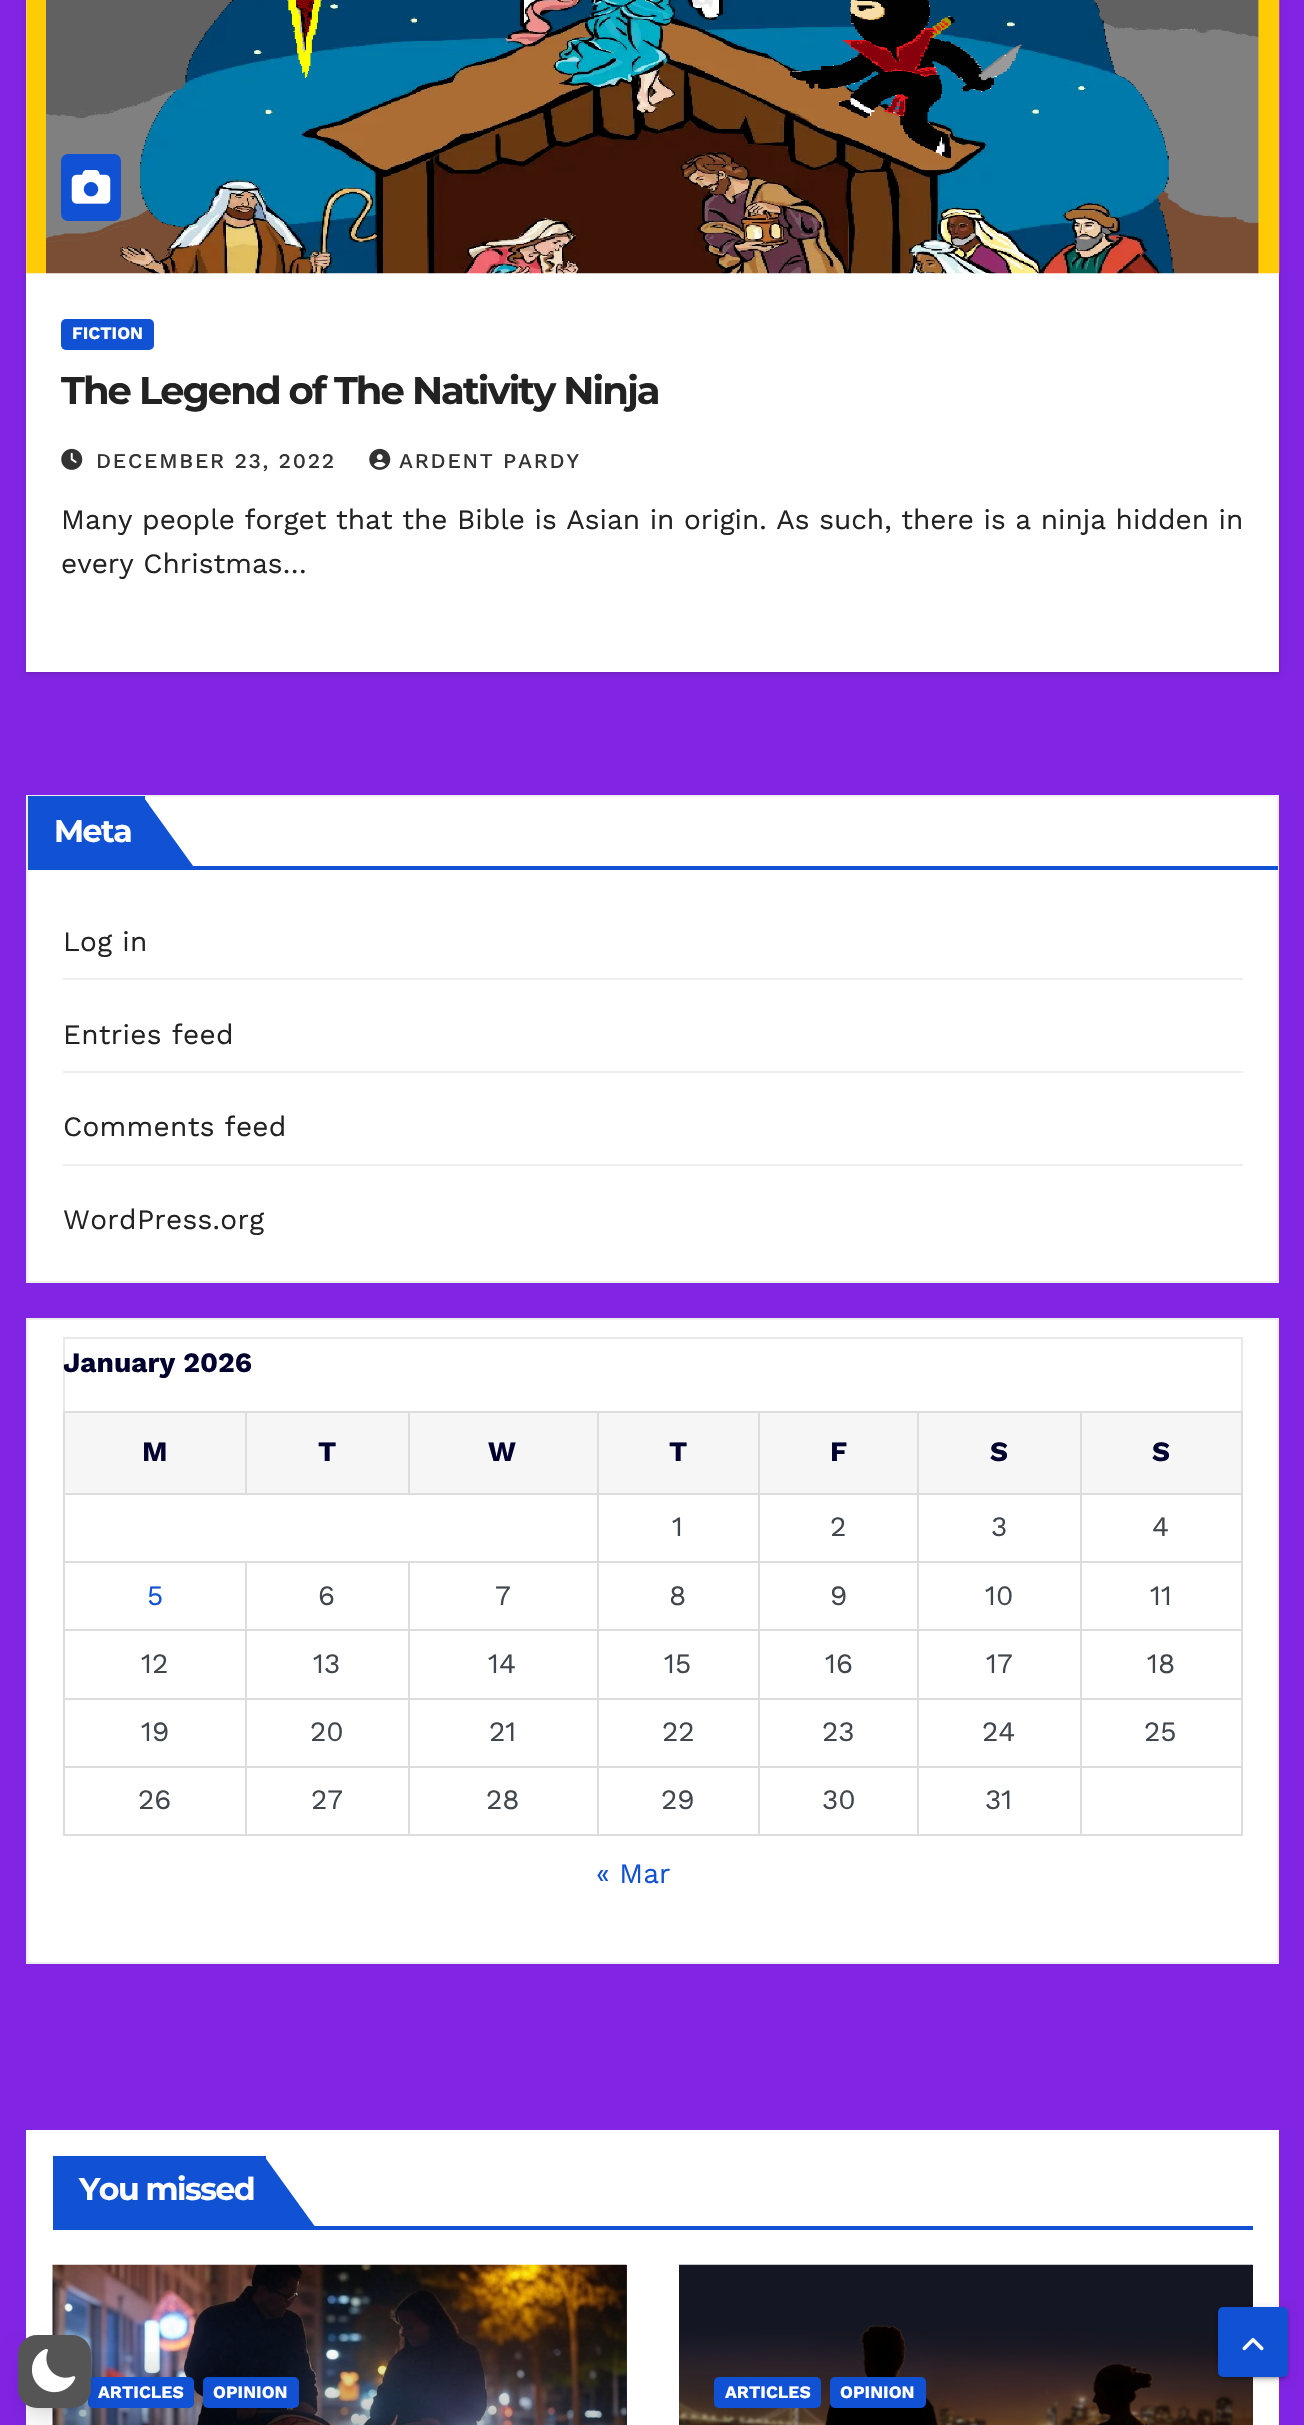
void draw(SkCanvas* canvas) {
	SkPaint fill;
	fill.setAntiAlias(true);
	auto makeFont = [&](const char* family, int weight, float size, bool italic = false) {
		SkFontStyle style(weight, SkFontStyle::kNormal_Width,
			italic ? SkFontStyle::kItalic_Slant : SkFontStyle::kUpright_Slant);
		SkFont result(fontMgr->matchFamilyStyle(family, style), size);
		result.setSubpixel(true);
		return result;
	};
	auto text = [&](const char* s, float x, float y, const SkFont& font) {
		canvas->drawString(s, x, y, font, fill);
	};
	auto spacedText = [&](const char* s, float x, float y, const SkFont& font, const SkPaint& ink, float letter, float word) {
		std::vector<SkGlyphID> glyphs(font.countText(s, strlen(s), SkTextEncoding::kUTF8));
		std::vector<float> xs(glyphs.size());
		font.textToGlyphs(s, strlen(s), SkTextEncoding::kUTF8, glyphs);
		font.getXPos(glyphs, xs, x);
		float extra = 0;
		for (size_t i = 0; i < glyphs.size(); i++) {
			xs[i] += extra;
			extra += letter + word * (glyphs[i] == font.unicharToGlyph(' '));
		}
		canvas->drawTextBlob(SkTextBlob::MakeFromPosHGlyphs(glyphs, xs, y, font), 0, 0, ink);
	};
	auto box = [&](float l, float t, float r, float b) {
		canvas->drawRect(SkRect::MakeLTRB(l, t, r, b), fill);
	};
	auto roundBox = [&](float l, float t, float r, float b, float radius) {
		canvas->drawRoundRect(SkRect::MakeLTRB(l, t, r, b), radius, radius, fill);
	};
	auto picture = [&](const char* path, float l, float t, float r, float b) {
		auto image = SkImages::DeferredFromEncodedData(SkData::MakeFromFileName(path));
		canvas->drawImageRect(image, SkRect::MakeLTRB(l, t, r, b), SkSamplingOptions());
	};
	canvas->clear(0xFF8224E3);
	fill.setColor(0x26000000);
	fill.setMaskFilter(SkMaskFilter::MakeBlur(kNormal_SkBlurStyle, 2.5f));
	canvas->drawRect(SkRect::MakeLTRB(26, -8, 1279, 674), fill);
	fill.setMaskFilter(nullptr);
	fill.setColor(0xFFFFFFFF);
	box(26, 0, 1279, 672);
	picture("image0.png", 26, 0, 1280, 274);
	fill.setColor(0xFF1151D3);
	roundBox(61, 154, 121, 221, 7);
	picture("image1.png", 71, 170, 111, 204);
	roundBox(61, 319, 154, 350, 5);
	picture("image2.png", 61, 448, 83, 470);
	picture("image3.png", 369, 448, 391, 470);
	fill.setColor(0xFFFFFFFF);
	canvas->drawRect(SkRect::MakeLTRB(27, 796, 1278, 1282), fill);
	fill.setStyle(SkPaint::kStroke_Style);
	fill.setStrokeWidth(2);
	fill.setColor(0xFFEEEEEE);
	canvas->drawRect(SkRect::MakeLTRB(27, 796, 1278, 1282), fill);
	fill.setStyle(SkPaint::kFill_Style);
	fill.setColor(0xFF1151D3);
	box(28, 866, 1278, 870);
	box(28, 796, 145, 866);
	canvas->drawPath(SkPathBuilder().moveTo(196, 870).lineTo(144, 870).lineTo(144, 798).close().detach(), fill);
	canvas->drawPath(SkPathBuilder().moveTo(144, 870).lineTo(149, 864).lineTo(149, 805).lineTo(144, 798).close().detach(), fill);
	fill.setColor(0xFFEEEEEE);
	box(63, 978, 1243, 980);
	box(63, 1071, 1243, 1073);
	box(63, 1164, 1243, 1166);
	fill.setColor(0xFFFFFFFF);
	canvas->drawRect(SkRect::MakeLTRB(27, 1319, 1278, 1963), fill);
	fill.setStyle(SkPaint::kStroke_Style);
	fill.setColor(0xFFEEEEEE);
	canvas->drawRect(SkRect::MakeLTRB(27, 1319, 1278, 1963), fill);
	fill.setStyle(SkPaint::kFill_Style);
	fill.setColor(0xFFE9E9E9);
	box(63, 1337, 1243, 1339);
	box(1241, 1337, 1243, 1411);
	box(63, 1337, 65, 1411);
	fill.setColor(0xFFF6F6F6);
	box(65, 1413, 245, 1493);
	fill.setColor(0xFFDDDDDD);
	box(1080, 1411, 1243, 1413);
	box(1080, 1493, 1243, 1495);
	box(1080, 1561, 1243, 1563);
	box(1080, 1629, 1243, 1631);
	box(1080, 1698, 1243, 1700);
	box(1080, 1766, 1243, 1768);
	box(1241, 1766, 1243, 1836);
	box(1080, 1834, 1243, 1836);
	box(1080, 1766, 1082, 1836);
	box(917, 1766, 1082, 1768);
	box(1080, 1698, 1082, 1768);
	box(917, 1698, 1082, 1700);
	box(1080, 1629, 1082, 1699);
	box(917, 1629, 1082, 1631);
	box(1080, 1561, 1082, 1631);
	box(917, 1561, 1082, 1563);
	box(1080, 1493, 1082, 1563);
	box(917, 1493, 1082, 1495);
	box(1080, 1411, 1082, 1495);
	box(917, 1411, 1082, 1413);
	box(917, 1834, 1082, 1836);
	box(917, 1766, 919, 1836);
	box(758, 1766, 919, 1768);
	box(917, 1698, 919, 1768);
	box(758, 1698, 919, 1700);
	box(917, 1629, 919, 1699);
	box(758, 1629, 919, 1631);
	box(917, 1561, 919, 1631);
	box(758, 1561, 919, 1563);
	box(917, 1493, 919, 1563);
	box(758, 1493, 919, 1495);
	box(917, 1411, 919, 1495);
	box(758, 1411, 919, 1413);
	box(758, 1834, 919, 1836);
	box(758, 1766, 760, 1836);
	box(597, 1766, 760, 1768);
	box(758, 1698, 760, 1768);
	box(597, 1698, 760, 1700);
	box(758, 1629, 760, 1699);
	box(597, 1629, 760, 1631);
	box(758, 1561, 760, 1631);
	box(597, 1561, 760, 1563);
	box(758, 1493, 760, 1563);
	box(597, 1493, 760, 1495);
	box(758, 1411, 760, 1495);
	box(597, 1411, 760, 1413);
	box(597, 1834, 760, 1836);
	box(597, 1766, 599, 1836);
	box(408, 1766, 599, 1768);
	box(597, 1698, 599, 1768);
	box(408, 1698, 599, 1700);
	box(597, 1629, 599, 1699);
	box(408, 1629, 599, 1631);
	box(597, 1561, 599, 1631);
	box(408, 1561, 599, 1563);
	box(597, 1493, 599, 1563);
	box(63, 1493, 599, 1495);
	box(597, 1411, 599, 1495);
	box(408, 1411, 599, 1413);
	box(408, 1411, 410, 1495);
	box(245, 1411, 410, 1413);
	box(245, 1411, 247, 1495);
	box(63, 1411, 247, 1413);
	box(408, 1834, 599, 1836);
	box(408, 1766, 410, 1836);
	box(245, 1766, 410, 1768);
	box(408, 1698, 410, 1768);
	box(245, 1698, 410, 1700);
	box(408, 1629, 410, 1699);
	box(245, 1629, 410, 1631);
	box(408, 1561, 410, 1631);
	box(245, 1561, 410, 1563);
	box(245, 1834, 410, 1836);
	box(245, 1766, 247, 1836);
	box(63, 1766, 247, 1768);
	box(245, 1698, 247, 1768);
	box(63, 1698, 247, 1700);
	box(245, 1629, 247, 1699);
	box(63, 1629, 247, 1631);
	box(245, 1561, 247, 1631);
	box(63, 1561, 247, 1563);
	box(63, 1834, 247, 1836);
	box(63, 1766, 65, 1836);
	box(63, 1698, 65, 1768);
	box(63, 1629, 65, 1699);
	box(63, 1561, 65, 1631);
	box(63, 1493, 65, 1563);
	box(63, 1411, 65, 1495);
	fill.setColor(0xFFF6F6F6);
	box(247, 1413, 408, 1493);
	box(410, 1413, 597, 1493);
	box(599, 1413, 758, 1493);
	box(760, 1413, 917, 1493);
	box(919, 1413, 1080, 1493);
	box(1082, 1413, 1241, 1493);
	fill.setColor(0xFFDDDDDD);
	box(1241, 1698, 1243, 1768);
	box(1241, 1629, 1243, 1699);
	box(1241, 1561, 1243, 1631);
	box(1241, 1493, 1243, 1563);
	box(1241, 1411, 1243, 1495);
	fill.setColor(0xFFFFFFFF);
	box(26, 2130, 1279, 2425);
	fill.setColor(0xFF1151D3);
	box(53, 2226, 1253, 2230);
	box(53, 2156, 266, 2226);
	canvas->drawPath(SkPathBuilder().moveTo(264, 2156).lineTo(264, 2228).lineTo(316, 2228).close().detach(), fill);
	fill.setColor(0xFF333333);
	box(626, 2265, 627, 2425);
	picture("image4.png", 52, 2264, 627, 2425);
	{
		const SkColor colors[] = {0x00000000, 0x66000000, 0xB3000000};
		const float stops[] = {0, 0.5f, 1};
		const SkPoint ends[] = {{340, 2345}, {340, 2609}};
		fill.setShader(SkGradientShader::MakeLinear(ends, colors, stops, 3, SkTileMode::kClamp));
		fill.setAlpha(255);
	}
	box(53, 2352, 627, 2425);
	fill.setShader(nullptr);
	fill.setColor(0xFF1151D3);
	roundBox(88, 2377, 194, 2408, 5);
	roundBox(203, 2377, 299, 2408, 5);
	picture("image5.png", 679, 2264, 1253, 2425);
	roundBox(714, 2377, 821, 2408, 5);
	roundBox(830, 2377, 926, 2408, 5);
	fill.setColor(0x1F000000);
	fill.setMaskFilter(SkMaskFilter::MakeBlur(kNormal_SkBlurStyle, 4.5f));
	canvas->drawRoundRect(SkRect::MakeLTRB(1218, 2308, 1288, 2378), 5, 5, fill);
	fill.setMaskFilter(nullptr);
	fill.setColor(0x33000000);
	fill.setMaskFilter(SkMaskFilter::MakeBlur(kNormal_SkBlurStyle, 1));
	canvas->drawRoundRect(SkRect::MakeLTRB(1222, 2315, 1285, 2378), 2, 2, fill);
	fill.setMaskFilter(nullptr);
	fill.setColor(0x24000000);
	fill.setMaskFilter(SkMaskFilter::MakeBlur(kNormal_SkBlurStyle, 2));
	canvas->drawRoundRect(SkRect::MakeLTRB(1218, 2310, 1288, 2380), 5, 5, fill);
	fill.setMaskFilter(nullptr);
	fill.setColor(0xFF1151D3);
	canvas->drawRoundRect(SkRect::MakeLTRB(1220, 2309, 1286, 2375), 3, 3, fill);
	fill.setStyle(SkPaint::kStroke_Style);
	fill.setStrokeWidth(4);
	canvas->drawRoundRect(SkRect::MakeLTRB(1220, 2309, 1286, 2375), 3, 3, fill);
	picture("image6.png", 1242, 2338, 1264, 2351);
	fill.setStyle(SkPaint::kFill_Style);
	fill.setColor(0x1A000000);
	fill.setMaskFilter(SkMaskFilter::MakeBlur(kNormal_SkBlurStyle, 5));
	canvas->drawRoundRect(SkRect::MakeLTRB(25, 2349, 84, 2408), 12, 12, fill);
	fill.setMaskFilter(nullptr);
	fill.setMaskFilter(SkMaskFilter::MakeBlur(kNormal_SkBlurStyle, 13));
	canvas->drawRoundRect(SkRect::MakeLTRB(23, 2357, 86, 2420), 14, 14, fill);
	fill.setMaskFilter(nullptr);
	fill.setColor(0xFF555555);
	roundBox(18, 2335, 91, 2408, 19);
	picture("image7.png", 32, 2349, 76, 2393);
	auto font1 = makeFont("Work Sans", 700, 17.5f);
	fill.setColor(0xFFFFFFFF);
	text("FICTION", 72, 339, font1);
	auto font2 = makeFont("Montserrat", 700, 38.5f);
	fill.setColor(0xFF222222);
	spacedText("The Legend of The Nativity Ninja", 61, 404, font2, fill, -1.9f, 0);
	auto font3 = makeFont("Work Sans", 500, 21);
	fill.setColor(0xFF333333);
	spacedText("DECEMBER 23, 2022", 96, 468, font3, fill, 1.75f, 0);
	spacedText("ARDENT PARDY", 399, 468, font3, fill, 1.75f, 0);
	auto font4 = makeFont("Work Sans", 400, 28);
	fill.setColor(0xFF222222);
	text("Many people forget that the Bible is Asian in origin. As such, there is a ninja hidden in", 61, 529, font4);
	text("every Christmas…", 61, 573, font4);
	auto font5 = makeFont("Montserrat", 700, 31.5f);
	fill.setColor(0xFFFFFFFF);
	spacedText("Meta", 54, 842, font5, fill, -1.5f, 0);
	fill.setColor(0xFF222222);
	spacedText("Log in", 63, 951, font4, fill, 0.3f, 0);
	spacedText("Entries feed", 63, 1044, font4, fill, 0.3f, 0);
	spacedText("Comments feed", 63, 1136, font4, fill, 0.3f, 0);
	spacedText("WordPress.org", 63, 1229, font4, fill, 0.3f, 0);
	auto font6 = makeFont("Work Sans", 700, 28);
	fill.setColor(0xFF01012F);
	text("January 2026", 63, 1372, font6);
	text("M", 142, 1461, font6);
	text("T", 318, 1461, font6);
	text("W", 488, 1461, font6);
	text("T", 669, 1461, font6);
	text("F", 830, 1461, font6);
	text("S", 990, 1461, font6);
	text("S", 1152, 1461, font6);
	fill.setColor(0xFF40464D);
	text("1", 672, 1536, font4);
	text("2", 830, 1536, font4);
	text("3", 991, 1536, font4);
	text("4", 1152, 1536, font4);
	fill.setColor(0xFF1151D3);
	text("5", 147, 1605, font4);
	fill.setColor(0xFF40464D);
	text("6", 318, 1605, font4);
	text("7", 495, 1605, font4);
	text("8", 669, 1605, font4);
	text("9", 830, 1605, font4);
	text("10", 985, 1605, font4);
	text("11", 1150, 1605, font4);
	text("12", 141, 1673, font4);
	text("13", 313, 1673, font4);
	text("14", 488, 1673, font4);
	text("15", 664, 1673, font4);
	text("16", 825, 1673, font4);
	text("17", 986, 1673, font4);
	text("18", 1147, 1673, font4);
	text("19", 141, 1741, font4);
	text("20", 310, 1741, font4);
	text("21", 489, 1741, font4);
	text("22", 662, 1741, font4);
	text("23", 822, 1741, font4);
	text("24", 982, 1741, font4);
	text("25", 1144, 1741, font4);
	text("26", 138, 1809, font4);
	text("27", 311, 1809, font4);
	text("28", 486, 1809, font4);
	text("29", 661, 1809, font4);
	text("30", 822, 1809, font4);
	text("31", 985, 1809, font4);
	fill.setColor(0xFF1151D3);
	text("« Mar", 596, 1883, font4);
	fill.setColor(0xFFFFFFFF);
	spacedText("You missed", 79, 2200, font5, fill, -1.5f, 0);
	text("ARTICLES", 98, 2398, font1);
	text("OPINION", 213, 2398, font1);
	text("ARTICLES", 725, 2398, font1);
	text("OPINION", 840, 2398, font1);
}
